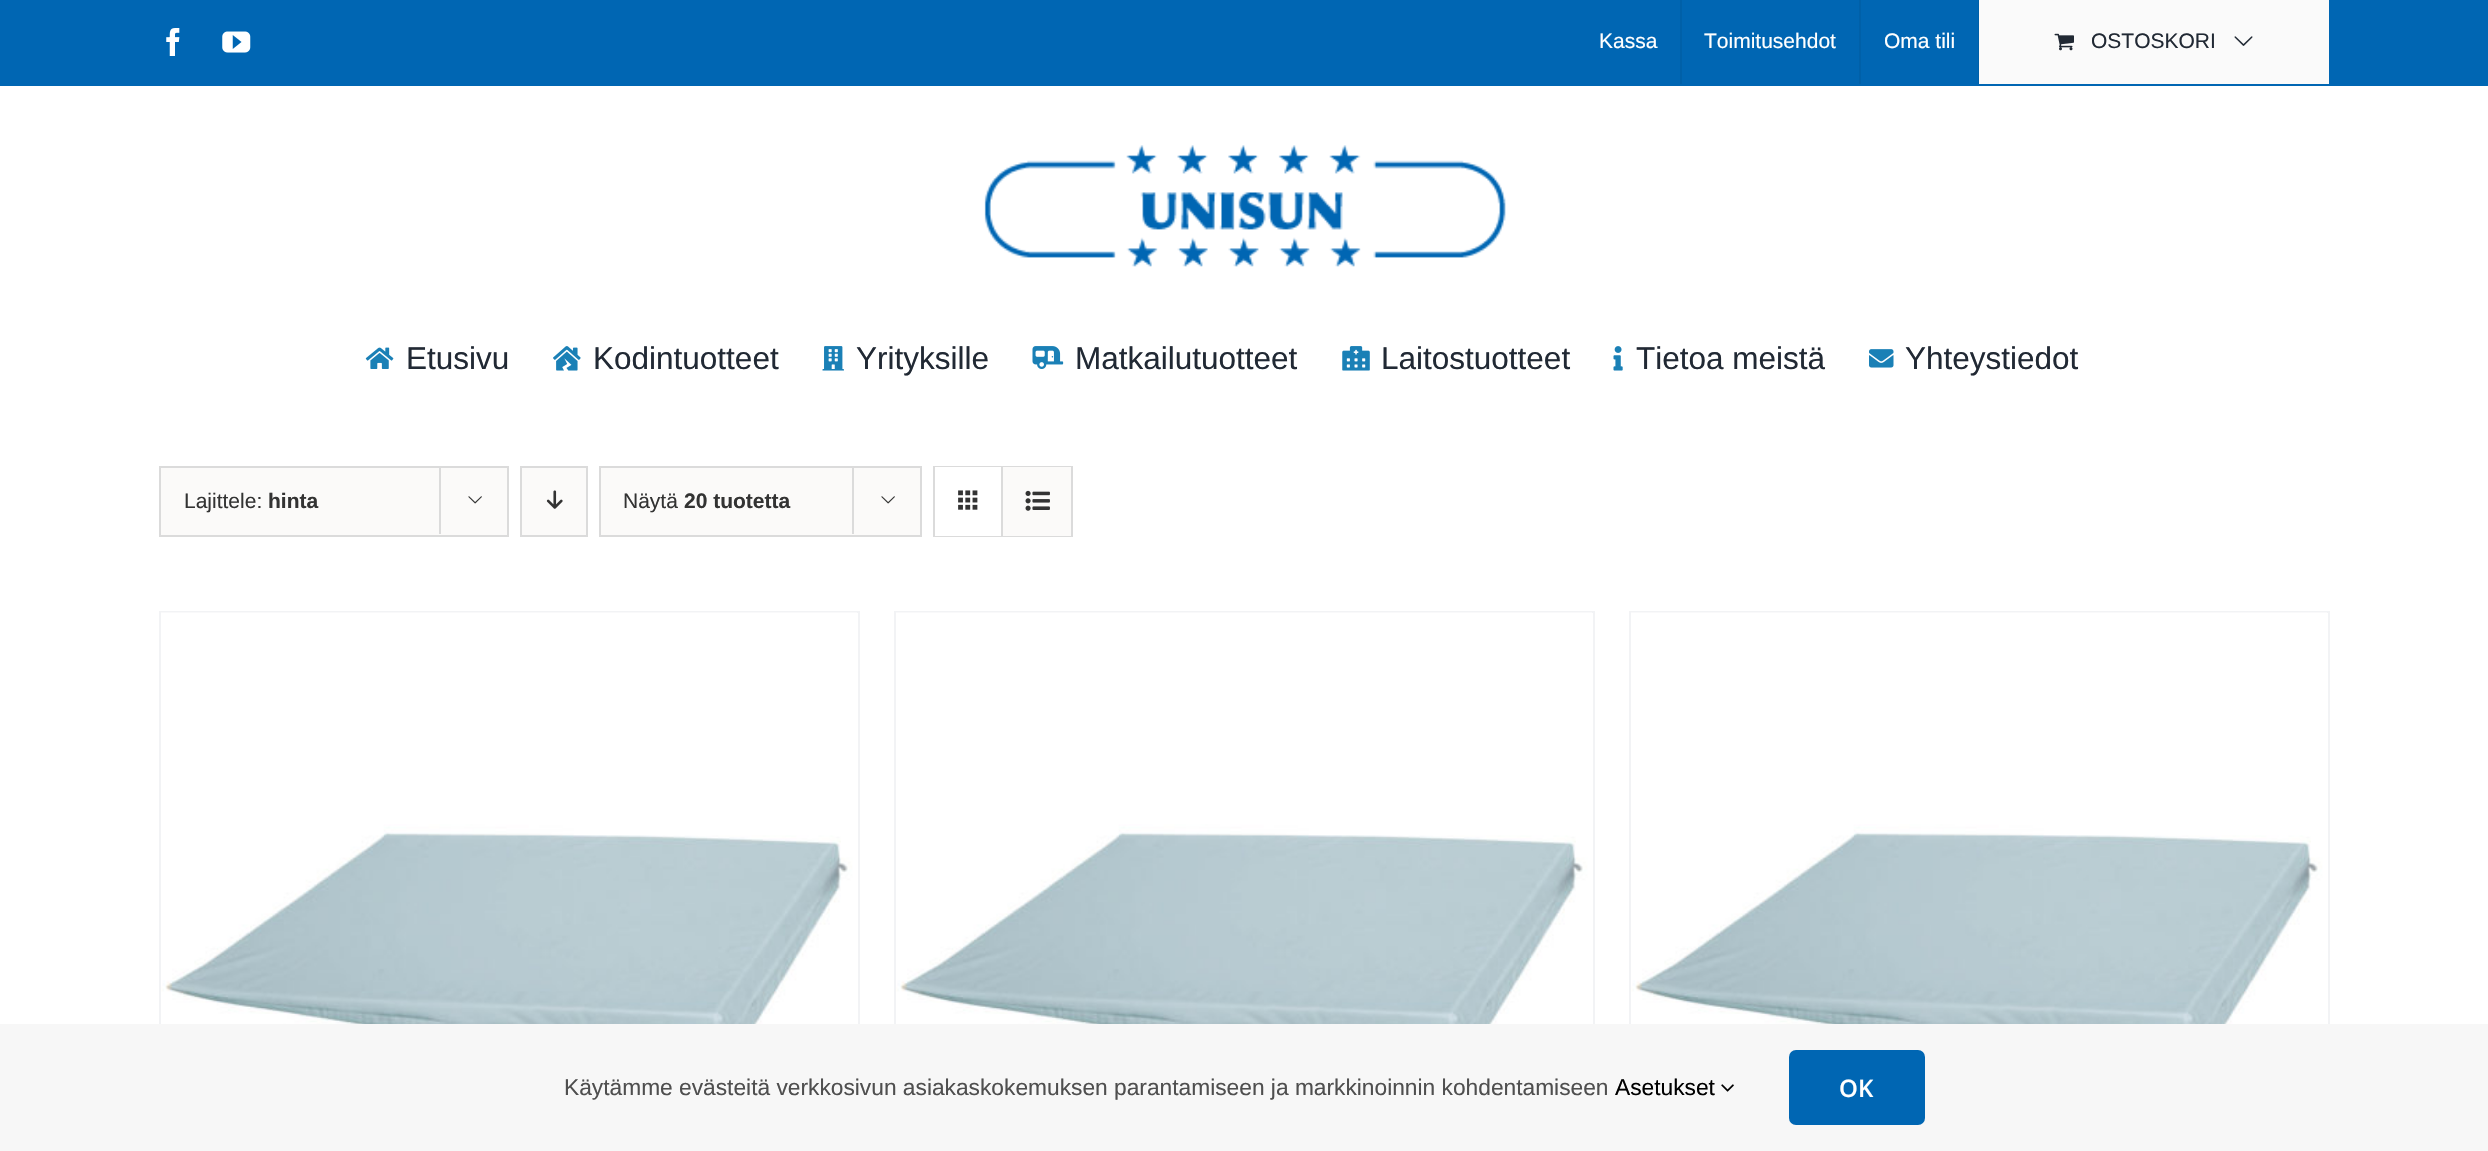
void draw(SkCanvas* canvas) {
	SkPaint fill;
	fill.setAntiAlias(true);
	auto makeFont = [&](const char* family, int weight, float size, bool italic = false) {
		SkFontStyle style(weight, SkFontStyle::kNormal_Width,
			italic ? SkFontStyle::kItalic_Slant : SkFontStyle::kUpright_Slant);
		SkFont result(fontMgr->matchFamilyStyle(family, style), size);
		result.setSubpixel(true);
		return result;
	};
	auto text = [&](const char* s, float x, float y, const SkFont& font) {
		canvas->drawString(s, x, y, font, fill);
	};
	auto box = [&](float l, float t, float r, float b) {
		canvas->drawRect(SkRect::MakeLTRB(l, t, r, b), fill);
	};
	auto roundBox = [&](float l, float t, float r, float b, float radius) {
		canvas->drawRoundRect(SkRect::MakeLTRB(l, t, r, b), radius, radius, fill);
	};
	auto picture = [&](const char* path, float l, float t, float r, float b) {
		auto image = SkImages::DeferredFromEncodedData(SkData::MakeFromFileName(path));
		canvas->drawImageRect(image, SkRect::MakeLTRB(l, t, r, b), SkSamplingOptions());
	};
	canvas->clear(0xFFFFFFFF);
	fill.setColor(0xFF0066B3);
	box(0, 0, 2488, 86);
	picture("image0.png", 166, 28, 180, 56);
	picture("image1.png", 222, 31, 251, 53);
	fill.setColor(0xFF0060A8);
	box(1680, 0, 1682, 84);
	box(1859, 0, 1861, 84);
	box(1978, 0, 1979, 84);
	fill.setColor(0xFFFAFAFA);
	box(1979, 0, 2329, 84);
	picture("image2.png", 2054, 33, 2074, 51);
	picture("image3.png", 2234, 36, 2253, 46);
	picture("image4.png", 984, 145, 1506, 267);
	picture("image5.png", 365, 347, 394, 369);
	picture("image6.png", 553, 346, 581, 371);
	picture("image7.png", 822, 346, 844, 371);
	picture("image8.png", 1032, 346, 1064, 369);
	picture("image9.png", 1342, 346, 1370, 371);
	picture("image10.png", 1613, 346, 1623, 371);
	picture("image11.png", 1869, 349, 1894, 368);
	fill.setColor(0xFFFBFAF9);
	canvas->drawRect(SkRect::MakeLTRB(160, 467, 508, 536), fill);
	fill.setStyle(SkPaint::kStroke_Style);
	fill.setStrokeWidth(2);
	fill.setColor(0xFFDBDBDB);
	canvas->drawRect(SkRect::MakeLTRB(160, 467, 508, 536), fill);
	fill.setStyle(SkPaint::kFill_Style);
	box(439, 466, 441, 534);
	picture("image12.png", 468, 496, 482, 504);
	fill.setColor(0xFFFBFAF9);
	canvas->drawRect(SkRect::MakeLTRB(521, 467, 587, 536), fill);
	fill.setStyle(SkPaint::kStroke_Style);
	fill.setColor(0xFFDBDBDB);
	canvas->drawRect(SkRect::MakeLTRB(521, 467, 587, 536), fill);
	picture("image13.png", 546, 490, 563, 509);
	fill.setStyle(SkPaint::kFill_Style);
	fill.setColor(0xFFFBFAF9);
	canvas->drawRect(SkRect::MakeLTRB(600, 467, 921, 536), fill);
	fill.setStyle(SkPaint::kStroke_Style);
	fill.setColor(0xFFDBDBDB);
	canvas->drawRect(SkRect::MakeLTRB(600, 467, 921, 536), fill);
	fill.setStyle(SkPaint::kFill_Style);
	box(852, 466, 854, 534);
	picture("image12.png", 881, 496, 895, 504);
	fill.setStyle(SkPaint::kStroke_Style);
	canvas->drawRect(SkRect::MakeLTRB(934, 467, 1072, 536), fill);
	fill.setStyle(SkPaint::kFill_Style);
	fill.setColor(0xFFFFFFFF);
	box(935, 467, 1001, 536);
	fill.setColor(0xFFDBDBDB);
	box(1001, 467, 1003, 536);
	picture("image14.png", 958, 490, 978, 510);
	fill.setColor(0xFFFBFAF9);
	box(1003, 467, 1071, 536);
	picture("image15.png", 1025, 490, 1050, 511);
	fill.setColor(0xFFF2F3F5);
	box(159, 611, 859, 613);
	box(858, 611, 860, 1024);
	box(159, 611, 161, 1024);
	picture("image16.png", 161, 612, 857, 1024);
	box(894, 611, 1594, 613);
	box(1593, 611, 1595, 1024);
	box(894, 611, 896, 1024);
	picture("image16.png", 896, 612, 1592, 1024);
	box(1629, 611, 2329, 613);
	box(2328, 611, 2330, 1024);
	box(1629, 611, 1631, 1024);
	picture("image16.png", 1631, 612, 2327, 1024);
	fill.setColor(0xFFF7F7F7);
	box(0, 1024, 2488, 1151);
	picture("image17.png", 1721, 1084, 1734, 1092);
	fill.setColor(0xFF0066B3);
	roundBox(1789, 1050, 1925, 1125, 7);
	auto font1 = makeFont("Liberation Sans", 400, 21);
	fill.setColor(0xFFFFFFFF);
	text("Kassa", 1599, 48, font1);
	text("Toimitusehdot", 1704, 48, font1);
	text("Oma tili", 1884, 48, font1);
	fill.setColor(0xFF212934);
	text("OSTOSKORI", 2091, 48, font1);
	auto font2 = makeFont("Liberation Sans", 400, 31.5f);
	text("Etusivu", 406, 369, font2);
	text("Kodintuotteet", 593, 369, font2);
	text("Yrityksille", 856, 369, font2);
	text("Matkailutuotteet", 1075, 369, font2);
	text("Laitostuotteet", 1381, 369, font2);
	text("Tietoa meistä", 1636, 369, font2);
	text("Yhteystiedot", 1905, 369, font2);
	fill.setColor(0xFF333333);
	text("Lajittele:", 184, 508, font1);
	auto font3 = makeFont("Liberation Sans", 700, 21);
	text("hinta", 268, 508, font3);
	text("Näytä", 623, 508, font1);
	text("20 tuotetta", 684, 508, font3);
	auto font4 = makeFont("Liberation Sans", 400, 22.75f);
	fill.setColor(0xFF4F4F4F);
	text("Käytämme evästeitä verkkosivun asiakaskokemuksen parantamiseen ja markkinoinnin kohdentamiseen", 564, 1095, font4);
	fill.setColor(0xFF000000);
	text("Asetukset", 1615, 1095, font4);
	auto font5 = makeFont("Open Sans", 600, 24);
	fill.setColor(0xFFFFFFFF);
	text("OK", 1839, 1097, font5);
}
